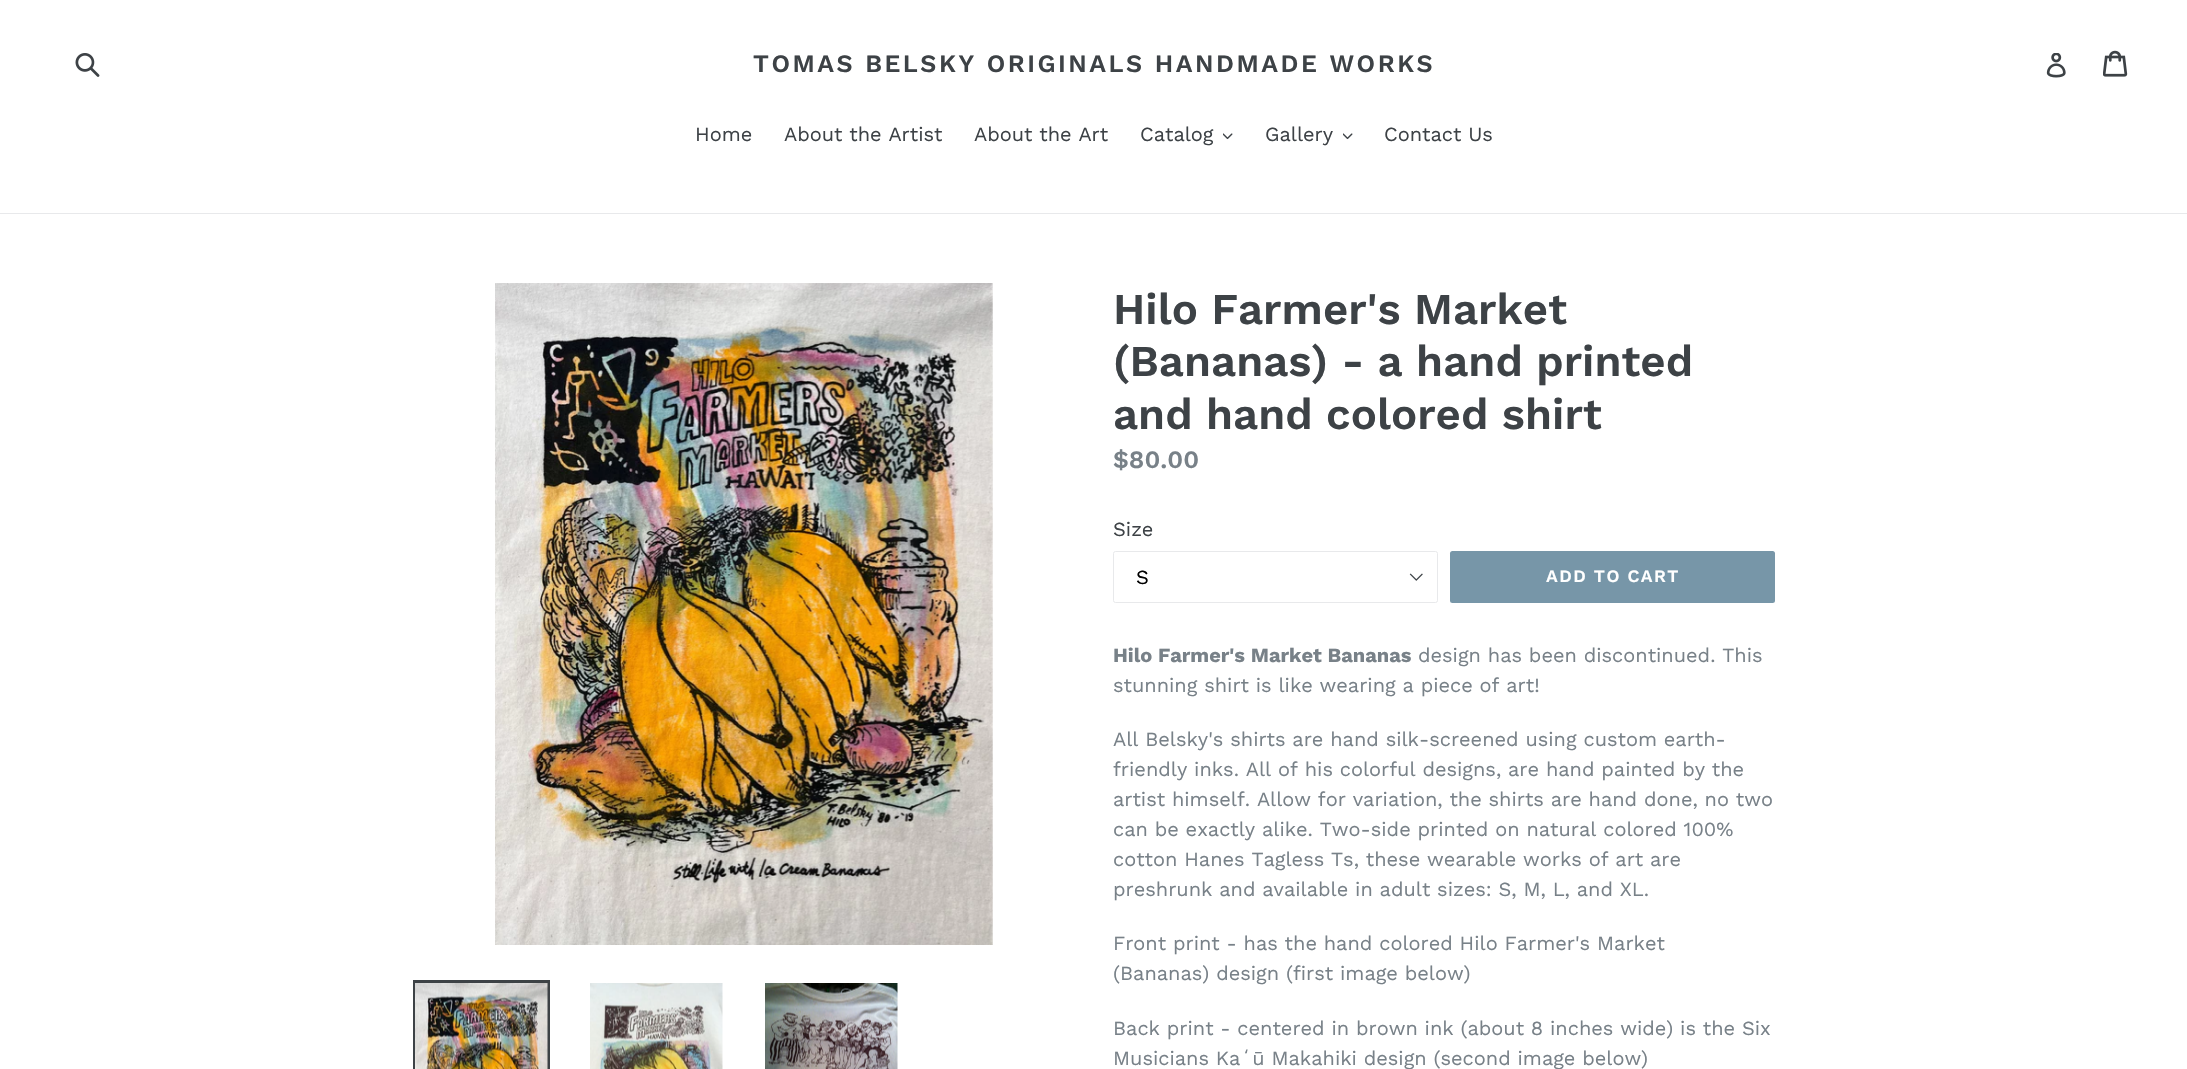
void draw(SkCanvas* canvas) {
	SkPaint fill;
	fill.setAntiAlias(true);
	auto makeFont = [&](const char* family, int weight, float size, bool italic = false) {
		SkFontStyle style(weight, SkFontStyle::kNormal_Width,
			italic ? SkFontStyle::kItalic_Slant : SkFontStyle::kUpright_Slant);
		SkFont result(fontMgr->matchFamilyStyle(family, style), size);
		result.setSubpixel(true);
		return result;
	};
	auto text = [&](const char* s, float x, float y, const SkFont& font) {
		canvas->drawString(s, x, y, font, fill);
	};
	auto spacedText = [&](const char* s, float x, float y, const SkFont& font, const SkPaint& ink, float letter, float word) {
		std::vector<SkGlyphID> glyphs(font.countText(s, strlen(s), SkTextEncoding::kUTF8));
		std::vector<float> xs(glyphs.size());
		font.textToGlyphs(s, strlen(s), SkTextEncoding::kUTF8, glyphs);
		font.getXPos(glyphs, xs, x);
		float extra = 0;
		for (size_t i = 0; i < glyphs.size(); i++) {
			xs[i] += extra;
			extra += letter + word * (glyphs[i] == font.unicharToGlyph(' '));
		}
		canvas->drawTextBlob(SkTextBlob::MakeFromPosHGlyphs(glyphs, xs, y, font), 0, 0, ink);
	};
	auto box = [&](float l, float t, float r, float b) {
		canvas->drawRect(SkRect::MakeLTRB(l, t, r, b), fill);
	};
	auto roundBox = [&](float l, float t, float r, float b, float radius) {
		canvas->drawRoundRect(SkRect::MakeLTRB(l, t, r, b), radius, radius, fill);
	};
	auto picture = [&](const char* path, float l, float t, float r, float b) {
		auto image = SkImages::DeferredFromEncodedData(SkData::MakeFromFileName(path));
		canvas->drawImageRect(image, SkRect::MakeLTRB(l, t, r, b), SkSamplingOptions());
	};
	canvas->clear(0xFFFFFFFF);
	picture("image0.png", 75, 53, 100, 77);
	picture("image1.png", 2046, 53, 2066, 78);
	picture("image2.png", 2103, 50, 2128, 77);
	fill.setColor(0xFFE8E9EB);
	box(0, 213, 2187, 214);
	picture("image3.png", 1223, 133, 1233, 140);
	picture("image3.png", 1343, 133, 1353, 140);
	picture("image4.png", 495, 283, 993, 945);
	fill.setStyle(SkPaint::kStroke_Style);
	fill.setStrokeWidth(3);
	fill.setColor(0xFF3D4246);
	canvas->drawRect(SkRect::MakeLTRB(414.5f, 981.5f, 548.5f, 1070.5f), fill);
	picture("image5.png", 415, 983, 548, 1069);
	picture("image6.png", 590, 983, 723, 1069);
	picture("image7.png", 765, 983, 898, 1069);
	picture("image8.png", 1409, 573, 1423, 581);
	fill.setStrokeWidth(1);
	fill.setColor(0xFFE8E9EB);
	canvas->drawRoundRect(SkRect::MakeLTRB(1113.5f, 551.5f, 1437.5f, 602.5f), 2, 2, fill);
	fill.setStyle(SkPaint::kFill_Style);
	fill.setColor(0xFF7796A8);
	roundBox(1450, 551, 1775, 603, 2.5f);
	auto font1 = makeFont("Work Sans", 600, 25);
	fill.setColor(0xFF3D4246);
	spacedText("TOMAS BELSKY ORIGINALS HANDMADE WORKS", 753, 72, font1, fill, 2.5f, 0);
	auto font2 = makeFont("Work Sans", 400, 20);
	text("Home", 695, 141, font2);
	text("About the Artist", 784, 141, font2);
	text("About the Art", 974, 141, font2);
	text("Catalog", 1140, 141, font2);
	text("Gallery", 1265, 141, font2);
	text("Contact Us", 1384, 141, font2);
	auto font3 = makeFont("Work Sans", 600, 43.75f);
	text("Hilo Farmer's Market", 1113, 324, font3);
	text("(Bananas) - a hand printed", 1113, 376, font3);
	text("and hand colored shirt", 1113, 429, font3);
	fill.setColor(0xFF788188);
	text("$80.00", 1113, 468, font1);
	fill.setColor(0xFF3D4246);
	text("Size", 1113, 536, font2);
	fill.setColor(0xFF000000);
	text("S", 1136, 584, font2);
	auto font4 = makeFont("Work Sans", 600, 17.5f);
	fill.setColor(0xFFFFFFFF);
	spacedText("ADD TO CART", 1546, 582, font4, fill, 1.4f, 0);
	auto font5 = makeFont("Work Sans", 700, 20);
	fill.setColor(0xFF788188);
	text("Hilo Farmer's Market Bananas", 1113, 662, font5);
	text("design has been discontinued. This", 1418, 662, font2);
	text("stunning shirt is like wearing a piece of art!", 1113, 692, font2);
	text("All Belsky's shirts are hand silk-screened using custom earth-", 1113, 746, font2);
	text("friendly inks. All of his colorful designs, are hand painted by the", 1113, 776, font2);
	text("artist himself. Allow for variation, the shirts are hand done, no two", 1113, 806, font2);
	text("can be exactly alike. Two-side printed on natural colored 100%", 1113, 836, font2);
	text("cotton Hanes Tagless Ts, these wearable works of art are", 1113, 866, font2);
	text("preshrunk and available in adult sizes: S, M, L, and XL.", 1113, 896, font2);
	text("Front print - has the hand colored Hilo Farmer's Market", 1113, 950, font2);
	text("(Bananas) design (first image below)", 1113, 980, font2);
	text("Back print - centered in brown ink (about 8 inches wide) is the Six", 1113, 1035, font2);
	text("Musicians Kaʻū Makahiki design (second image below)", 1113, 1065, font2);
}
